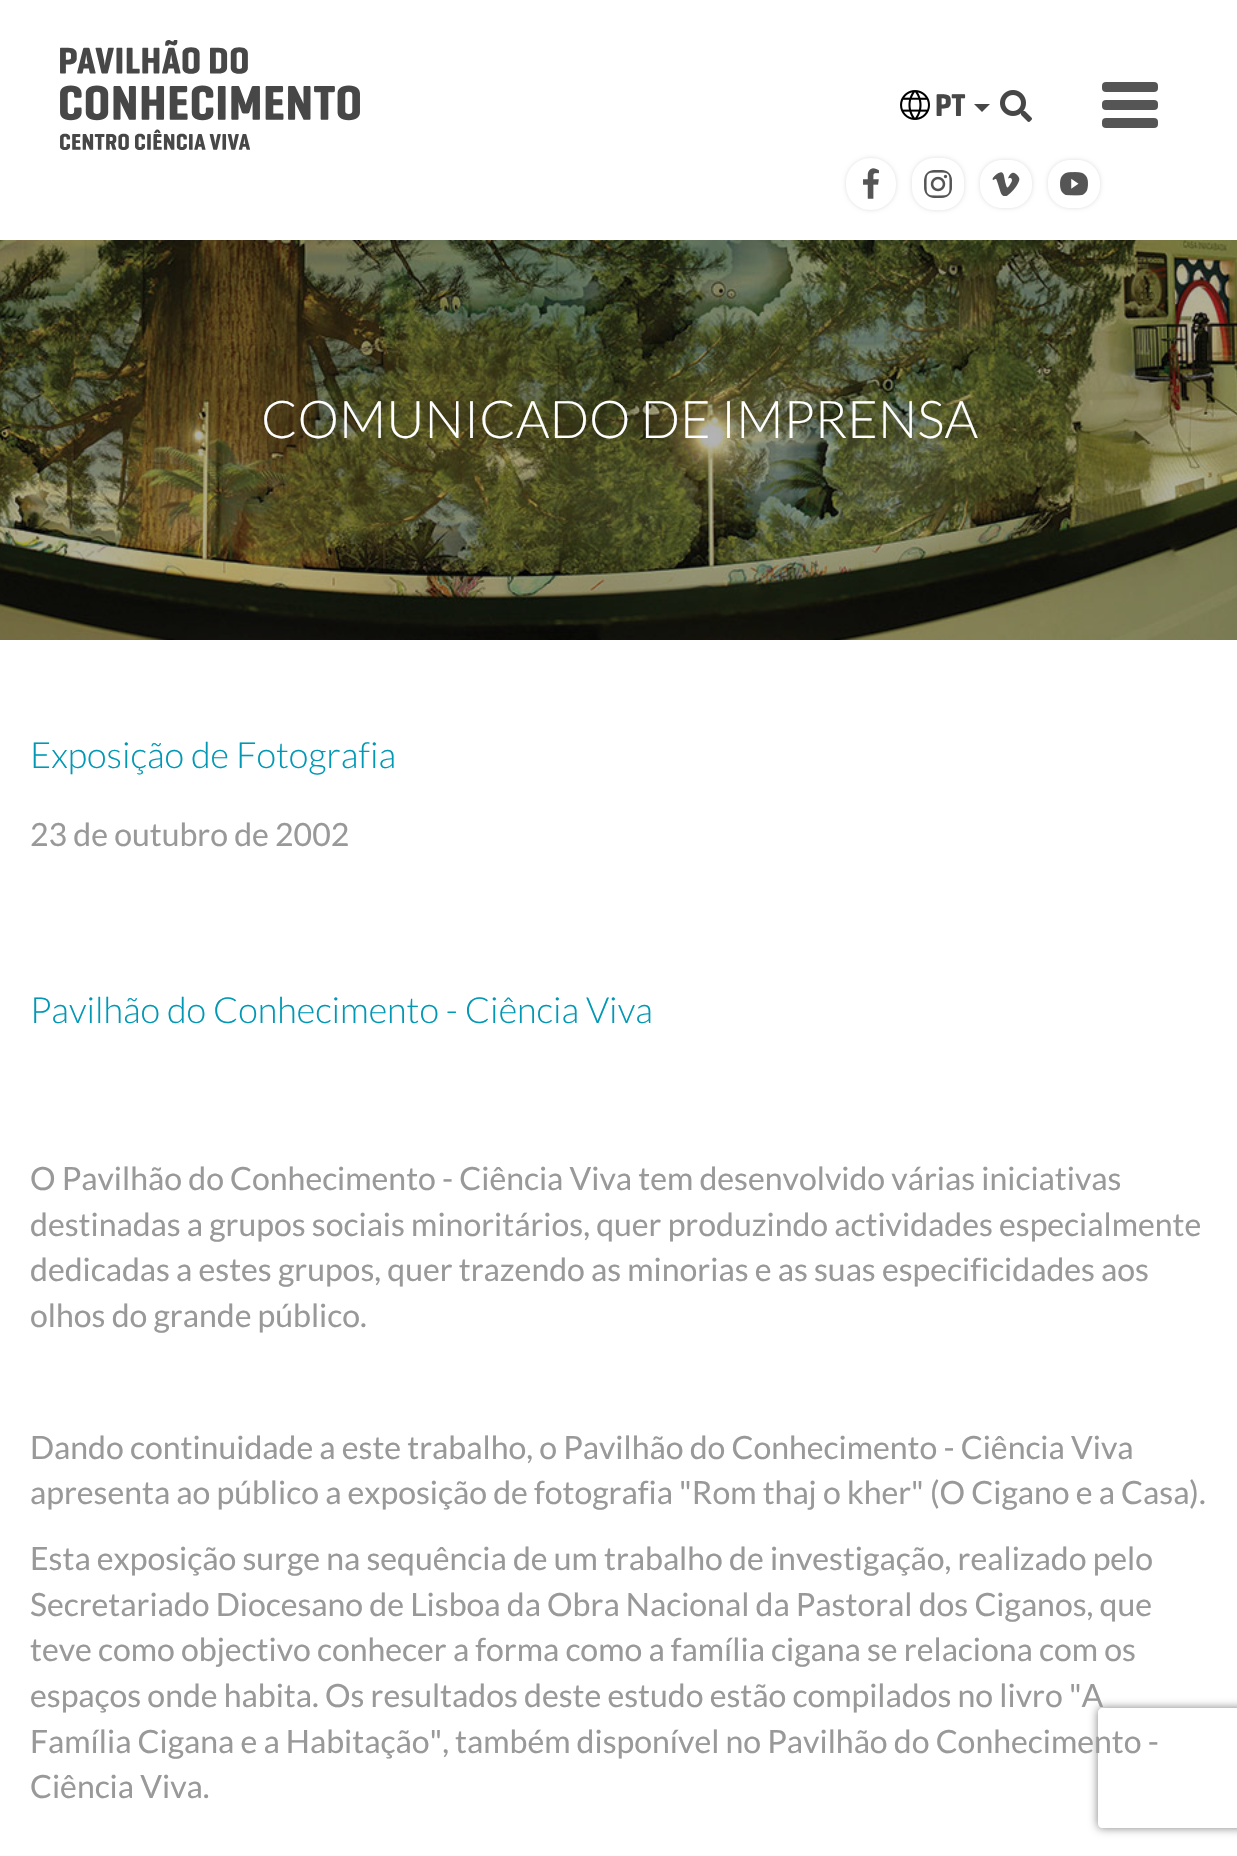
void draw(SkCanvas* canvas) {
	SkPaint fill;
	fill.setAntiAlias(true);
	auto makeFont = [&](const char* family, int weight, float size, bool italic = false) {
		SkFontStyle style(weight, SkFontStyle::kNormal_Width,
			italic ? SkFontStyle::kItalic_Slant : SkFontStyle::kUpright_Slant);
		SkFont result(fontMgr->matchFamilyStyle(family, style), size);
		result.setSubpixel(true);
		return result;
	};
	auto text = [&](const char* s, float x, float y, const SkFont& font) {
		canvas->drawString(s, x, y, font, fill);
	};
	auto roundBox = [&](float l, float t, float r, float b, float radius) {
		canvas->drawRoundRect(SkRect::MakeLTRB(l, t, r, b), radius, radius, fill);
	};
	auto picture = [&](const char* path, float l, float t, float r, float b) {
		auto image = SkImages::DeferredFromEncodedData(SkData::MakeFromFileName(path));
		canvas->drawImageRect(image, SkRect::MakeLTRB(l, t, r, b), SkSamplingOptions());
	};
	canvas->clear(0xFFFFFFFF);
	picture("image0.png", 60, 40, 360, 150);
	picture("image1.png", 900, 90, 930, 120);
	fill.setColor(0xFF474747);
	canvas->drawPath(SkPathBuilder().moveTo(974, 104).lineTo(990, 104).lineTo(982, 112).close().detach(), fill);
	picture("image2.png", 1000, 90, 1032, 122);
	fill.setColor(0xFF555555);
	roundBox(1102, 100, 1158, 110, 4);
	roundBox(1102, 82, 1158, 92, 4);
	roundBox(1102, 118, 1158, 128, 4);
	canvas->save();
	canvas->clipPath(SkPathBuilder(SkPathFillType::kEvenOdd).moveTo(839, 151).lineTo(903, 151).lineTo(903, 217).lineTo(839, 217).close().moveTo(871, 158).cubicTo(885, 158, 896, 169, 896, 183).lineTo(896, 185).cubicTo(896, 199, 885, 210, 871, 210).cubicTo(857, 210, 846, 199, 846, 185).lineTo(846, 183).cubicTo(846, 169, 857, 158, 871, 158).close().detach(), true);
	fill.setColor(0xFFDDDDDD);
	fill.setMaskFilter(SkMaskFilter::MakeBlur(kNormal_SkBlurStyle, 2));
	canvas->drawRoundRect(SkRect::MakeLTRB(846, 158, 896, 210), 25, 25, fill);
	fill.setMaskFilter(nullptr);
	canvas->restore();
	picture("image3.png", 863, 168, 879, 199);
	canvas->save();
	canvas->clipPath(SkPathBuilder(SkPathFillType::kEvenOdd).moveTo(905, 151).lineTo(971, 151).lineTo(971, 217).lineTo(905, 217).close().moveTo(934, 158).lineTo(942, 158).cubicTo(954, 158, 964, 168, 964, 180).lineTo(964, 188).cubicTo(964, 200, 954, 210, 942, 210).lineTo(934, 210).cubicTo(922, 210, 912, 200, 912, 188).lineTo(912, 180).cubicTo(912, 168, 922, 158, 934, 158).close().detach(), true);
	fill.setMaskFilter(SkMaskFilter::MakeBlur(kNormal_SkBlurStyle, 2));
	canvas->drawRoundRect(SkRect::MakeLTRB(912, 158, 964, 210), 22, 22, fill);
	fill.setMaskFilter(nullptr);
	canvas->restore();
	picture("image4.png", 924, 170, 952, 198);
	canvas->save();
	canvas->clipPath(SkPathBuilder(SkPathFillType::kEvenOdd).moveTo(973, 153).lineTo(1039, 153).lineTo(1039, 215).lineTo(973, 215).close().moveTo(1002, 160).lineTo(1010, 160).cubicTo(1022, 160, 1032, 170, 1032, 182).lineTo(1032, 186).cubicTo(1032, 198, 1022, 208, 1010, 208).lineTo(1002, 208).cubicTo(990, 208, 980, 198, 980, 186).lineTo(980, 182).cubicTo(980, 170, 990, 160, 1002, 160).close().detach(), true);
	fill.setMaskFilter(SkMaskFilter::MakeBlur(kNormal_SkBlurStyle, 2));
	canvas->drawRoundRect(SkRect::MakeLTRB(980, 160, 1032, 208), 22, 22, fill);
	fill.setMaskFilter(nullptr);
	canvas->restore();
	picture("image5.png", 992, 172, 1020, 196);
	canvas->save();
	canvas->clipPath(SkPathBuilder(SkPathFillType::kEvenOdd).moveTo(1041, 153).lineTo(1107, 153).lineTo(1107, 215).lineTo(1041, 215).close().moveTo(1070, 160).lineTo(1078, 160).cubicTo(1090, 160, 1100, 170, 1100, 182).lineTo(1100, 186).cubicTo(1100, 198, 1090, 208, 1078, 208).lineTo(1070, 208).cubicTo(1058, 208, 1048, 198, 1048, 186).lineTo(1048, 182).cubicTo(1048, 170, 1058, 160, 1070, 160).close().detach(), true);
	fill.setMaskFilter(SkMaskFilter::MakeBlur(kNormal_SkBlurStyle, 2));
	canvas->drawRoundRect(SkRect::MakeLTRB(1048, 160, 1100, 208), 22, 22, fill);
	fill.setMaskFilter(nullptr);
	canvas->restore();
	picture("image6.png", 1060, 172, 1088, 196);
	picture("image7.png", 0, 240, 1237, 640);
	canvas->save();
	canvas->clipPath(SkPathBuilder(SkPathFillType::kEvenOdd).moveTo(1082, 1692).lineTo(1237, 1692).lineTo(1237, 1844).lineTo(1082, 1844).close().moveTo(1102, 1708).lineTo(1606, 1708).cubicTo(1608, 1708, 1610, 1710, 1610, 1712).lineTo(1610, 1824).cubicTo(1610, 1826, 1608, 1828, 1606, 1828).lineTo(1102, 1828).cubicTo(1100, 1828, 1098, 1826, 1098, 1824).lineTo(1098, 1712).cubicTo(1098, 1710, 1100, 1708, 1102, 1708).close().detach(), true);
	fill.setColor(0xFF808080);
	fill.setMaskFilter(SkMaskFilter::MakeBlur(kNormal_SkBlurStyle, 5));
	canvas->drawRoundRect(SkRect::MakeLTRB(1098, 1708, 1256, 1828), 4, 4, fill);
	fill.setMaskFilter(nullptr);
	canvas->restore();
	auto font1 = makeFont("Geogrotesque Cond", 700, 32);
	fill.setColor(0xFF474747);
	text("PT", 935, 116, font1);
	auto font2 = makeFont("Lato", 300, 52);
	fill.setColor(0xFFFFFFFF);
	text("COMUNICADO DE IMPRENSA", 261, 438, font2);
	auto font3 = makeFont("Lato", 300, 36);
	fill.setColor(0xFF0098B5);
	text("Exposição de Fotografia", 30, 768, font3);
	auto font4 = makeFont("Lato", 400, 32);
	fill.setColor(0xFF999999);
	text("23 de outubro de 2002", 30, 846, font4);
	fill.setColor(0xFF0098B5);
	text("Pavilhão do Conhecimento - Ciência Viva", 30, 1023, font3);
	fill.setColor(0xFF999999);
	text("O Pavilhão do Conhecimento - Ciência Viva tem desenvolvido várias iniciativas", 30, 1190, font4);
	text("destinadas a grupos sociais minoritários, quer produzindo actividades especialmente", 30, 1236, font4);
	text("dedicadas a estes grupos, quer trazendo as minorias e as suas especificidades aos", 30, 1281, font4);
	text("olhos do grande público.", 30, 1327, font4);
	text("Dando continuidade a este trabalho, o Pavilhão do Conhecimento - Ciência Viva", 30, 1459, font4);
	text("apresenta ao público a exposição de fotografia \"Rom thaj o kher\" (O Cigano e a Casa).", 30, 1504, font4);
	text("Esta exposição surge na sequência de um trabalho de investigação, realizado pelo", 30, 1570, font4);
	text("Secretariado Diocesano de Lisboa da Obra Nacional da Pastoral dos Ciganos, que", 30, 1616, font4);
	text("teve como objectivo conhecer a forma como a família cigana se relaciona com os", 30, 1661, font4);
	text("espaços onde habita. Os resultados deste estudo estão compilados no livro \"A", 30, 1707, font4);
	text("Família Cigana e a Habitação\", também disponível no Pavilhão do Conhecimento -", 30, 1753, font4);
	text("Ciência Viva.", 30, 1798, font4);
}
